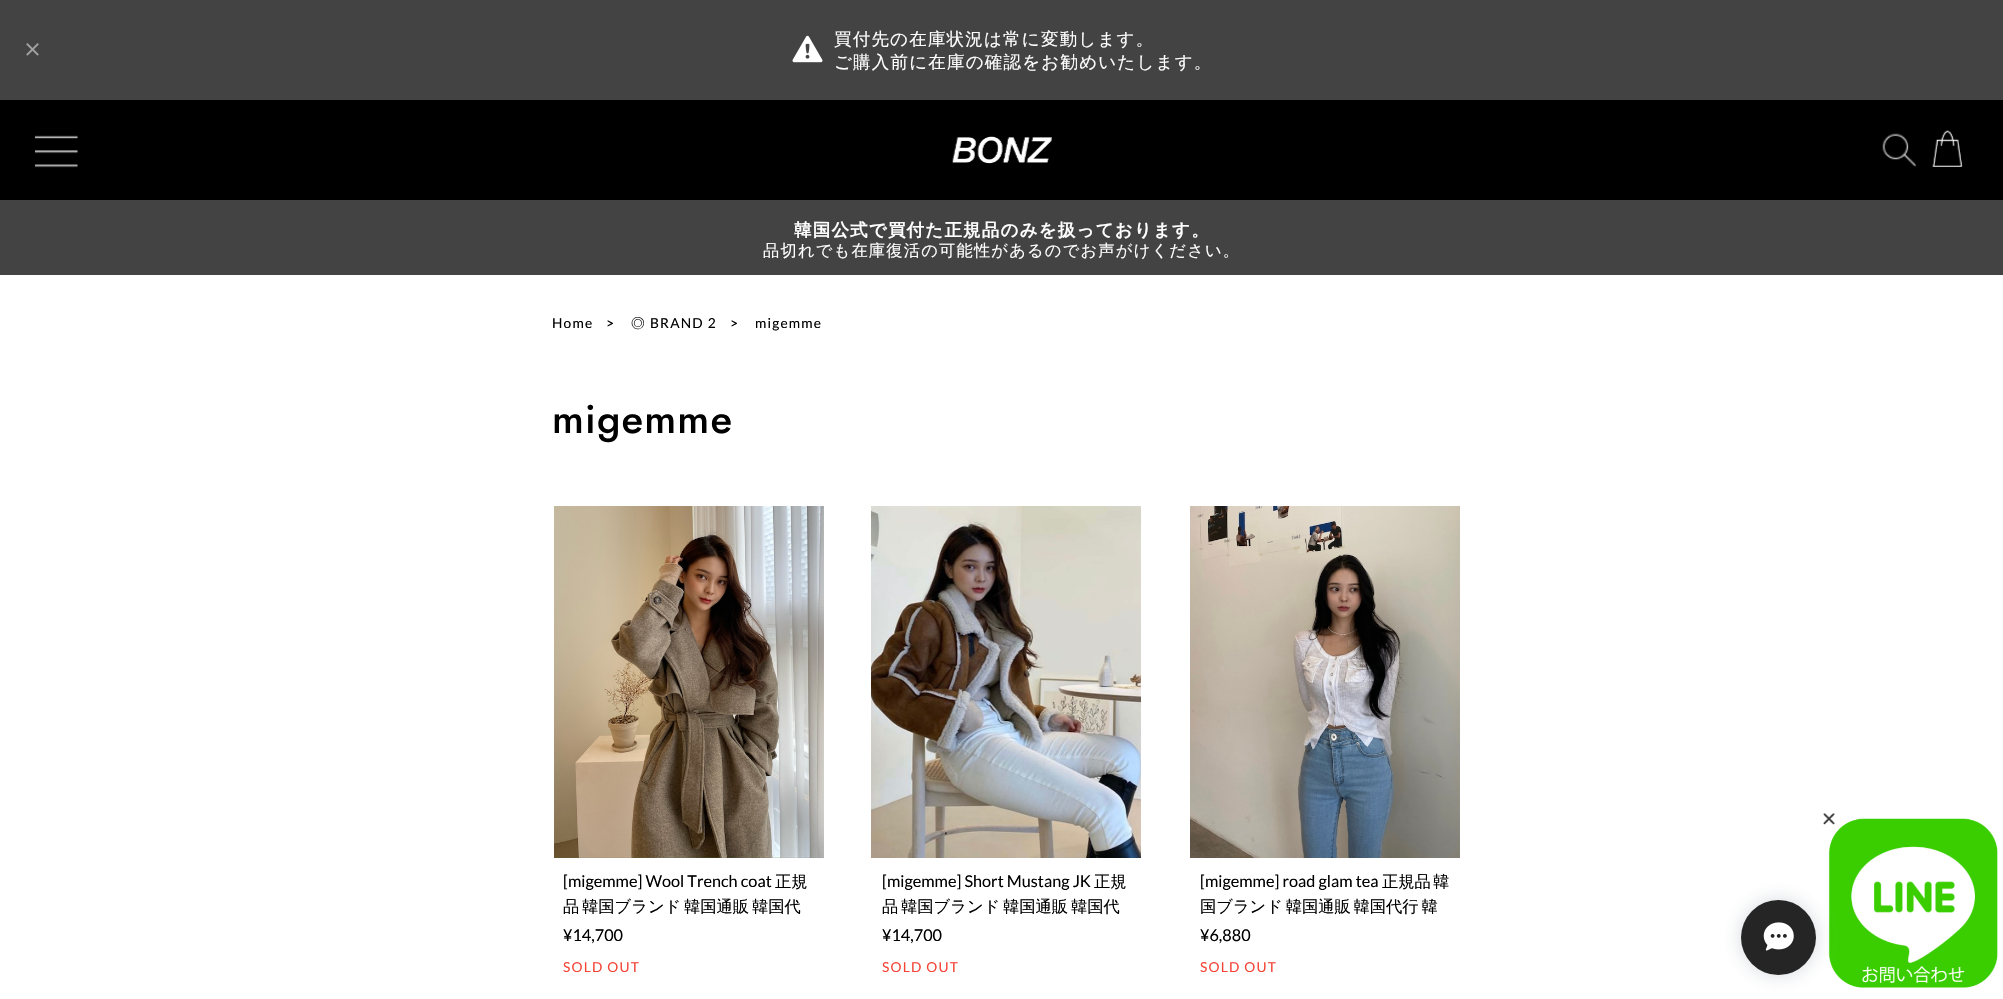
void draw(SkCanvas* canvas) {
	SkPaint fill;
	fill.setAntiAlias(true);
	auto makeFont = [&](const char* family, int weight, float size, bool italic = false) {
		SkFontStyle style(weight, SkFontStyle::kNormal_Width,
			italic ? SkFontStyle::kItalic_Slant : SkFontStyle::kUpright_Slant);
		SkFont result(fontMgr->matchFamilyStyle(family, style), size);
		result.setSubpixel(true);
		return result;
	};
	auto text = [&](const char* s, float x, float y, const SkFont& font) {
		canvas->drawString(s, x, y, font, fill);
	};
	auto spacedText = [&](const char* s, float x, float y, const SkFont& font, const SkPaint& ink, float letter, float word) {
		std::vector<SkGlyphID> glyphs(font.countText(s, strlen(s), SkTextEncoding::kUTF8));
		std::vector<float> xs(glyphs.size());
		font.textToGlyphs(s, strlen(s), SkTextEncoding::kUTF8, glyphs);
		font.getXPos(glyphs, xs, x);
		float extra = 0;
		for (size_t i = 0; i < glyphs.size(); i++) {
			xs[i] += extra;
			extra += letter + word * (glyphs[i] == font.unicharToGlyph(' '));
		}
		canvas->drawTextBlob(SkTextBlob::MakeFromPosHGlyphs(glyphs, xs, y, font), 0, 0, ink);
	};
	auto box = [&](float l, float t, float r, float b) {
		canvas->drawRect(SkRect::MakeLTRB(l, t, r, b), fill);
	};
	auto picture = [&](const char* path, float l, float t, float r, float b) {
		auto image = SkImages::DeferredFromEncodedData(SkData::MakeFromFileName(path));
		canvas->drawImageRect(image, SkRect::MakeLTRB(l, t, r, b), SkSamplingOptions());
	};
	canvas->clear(0xFFFFFFFF);
	fill.setColor(0xFF434343);
	box(0, 0, 2003, 100);
	picture("image0.png", 26, 43, 39, 56);
	picture("image1.png", 792, 35, 823, 63);
	fill.setColor(0xFF000000);
	box(0, 100, 2003, 200);
	picture("image2.png", 35, 135, 78, 168);
	picture("image3.png", 951, 136, 1052, 164);
	picture("image4.png", 1882, 133, 1916, 167);
	picture("image5.png", 1932, 130, 1963, 167);
	fill.setColor(0xFF434343);
	box(0, 200, 2003, 275);
	picture("image6.png", 554, 506, 824, 858);
	picture("image7.png", 871, 506, 1141, 858);
	picture("image8.png", 1190, 506, 1460, 858);
	picture("image11.png", 1828, 818, 1998, 988);
	fill.setColor(0x33334258);
	fill.setMaskFilter(SkMaskFilter::MakeBlur(kNormal_SkBlurStyle, 9.5f));
	canvas->drawRoundRect(SkRect::MakeLTRB(1741, 900, 1816, 975), 37.5f, 37.5f, fill);
	fill.setMaskFilter(nullptr);
	fill.setColor(0xFF252525);
	canvas->drawCircle(1778.5f, 937.5f, 37.5f, fill);
	picture("image9.png", 1763, 922, 1794, 951);
	picture("image10.png", 1823, 813, 1835, 825);
	auto font1 = makeFont("WenQuanYi Zen Hei", 500, 17.5f);
	fill.setColor(0xFFFFFFFF);
	spacedText("買付先の在庫状況は常に変動します。", 834, 45, font1, fill, 1.2f, 0);
	spacedText("ご購入前に在庫の確認をお勧めいたします。", 834, 68, font1, fill, 1.2f, 0);
	auto font2 = makeFont("WenQuanYi Zen Hei", 700, 17.5f);
	spacedText("韓国公式で買付た正規品のみを扱っております。", 794, 236, font2, fill, 1.2f, 0);
	auto font3 = makeFont("WenQuanYi Zen Hei", 500, 16.25f);
	spacedText("品切れでも在庫復活の可能性があるのでお声がけください。", 763, 256, font3, fill, 1.2f, 0);
	auto font4 = makeFont("Lato", 400, 13.75f);
	fill.setColor(0xFF000000);
	spacedText("Home", 552, 328, font4, fill, 1.2f, 0);
	spacedText(">", 606, 328, font4, fill, 1.2f, 0);
	auto font5 = makeFont("WenQuanYi Zen Hei", 500, 13.75f);
	spacedText("◎", 631, 328, font5, fill, 1.2f, 0);
	spacedText("BRAND 2", 650, 328, font4, fill, 1.2f, 0);
	spacedText(">", 730, 328, font4, fill, 1.2f, 0);
	spacedText("migemme", 755, 328, font4, fill, 1.2f, 0);
	auto font6 = makeFont("Jost", 500, 40);
	spacedText("migemme", 552, 433, font6, fill, 1.2f, 0);
	auto font7 = makeFont("Lato", 400, 16.25f);
	text("[migemme] Wool Trench coat", 563, 887, font7);
	text("正規", 775, 887, font3);
	spacedText("品 韓国ブランド 韓国通販 韓国代", 563, 912, font3, fill, 0, -2);
	text("¥14,700", 563, 941, font7);
	fill.setColor(0xFFF54336);
	spacedText("SOLD OUT", 563, 972, font4, fill, 1.2f, 0);
	fill.setColor(0xFF000000);
	text("[migemme] Short Mustang JK", 882, 887, font7);
	text("正規", 1094, 887, font3);
	spacedText("品 韓国ブランド 韓国通販 韓国代", 882, 912, font3, fill, 0, -2);
	text("¥14,700", 882, 941, font7);
	fill.setColor(0xFFF54336);
	spacedText("SOLD OUT", 882, 972, font4, fill, 1.2f, 0);
	fill.setColor(0xFF000000);
	text("[migemme] road glam tea", 1200, 887, font7);
	text("正規品", 1382, 887, font3);
	text("韓", 1433, 887, font3);
	spacedText("国ブランド 韓国通販 韓国代行 韓", 1200, 912, font3, fill, 0, -2);
	text("¥6,880", 1200, 941, font7);
	fill.setColor(0xFFF54336);
	spacedText("SOLD OUT", 1200, 972, font4, fill, 1.2f, 0);
}
